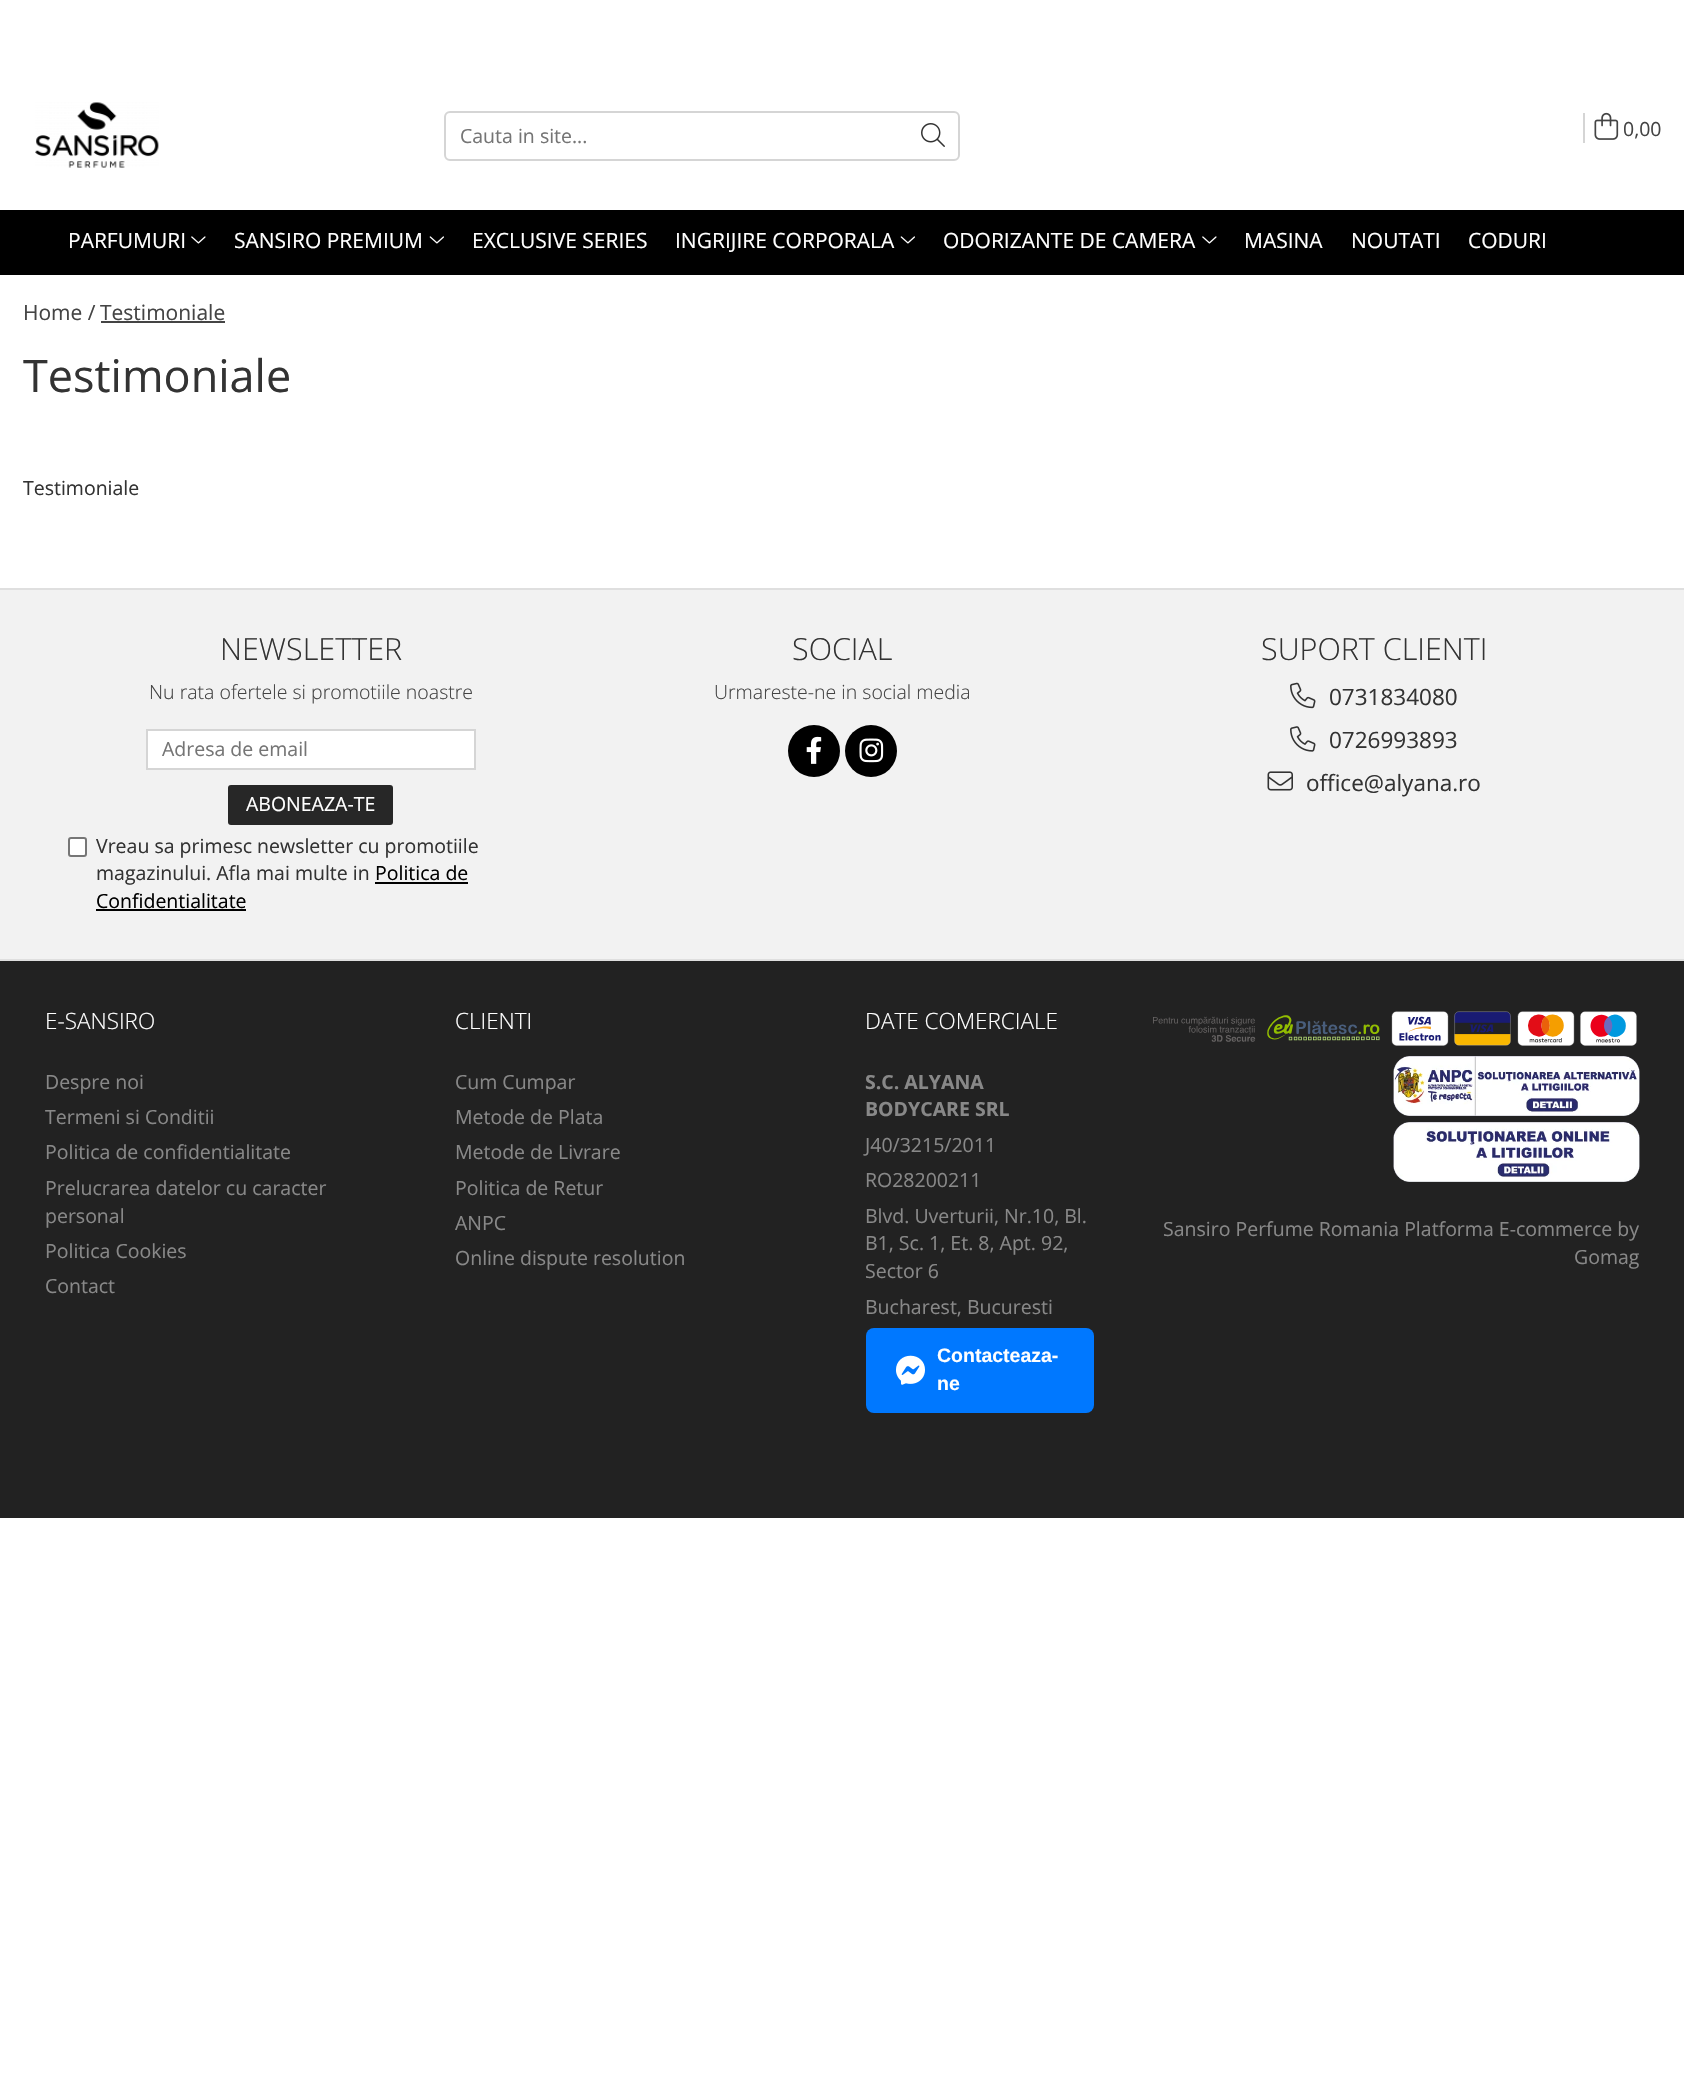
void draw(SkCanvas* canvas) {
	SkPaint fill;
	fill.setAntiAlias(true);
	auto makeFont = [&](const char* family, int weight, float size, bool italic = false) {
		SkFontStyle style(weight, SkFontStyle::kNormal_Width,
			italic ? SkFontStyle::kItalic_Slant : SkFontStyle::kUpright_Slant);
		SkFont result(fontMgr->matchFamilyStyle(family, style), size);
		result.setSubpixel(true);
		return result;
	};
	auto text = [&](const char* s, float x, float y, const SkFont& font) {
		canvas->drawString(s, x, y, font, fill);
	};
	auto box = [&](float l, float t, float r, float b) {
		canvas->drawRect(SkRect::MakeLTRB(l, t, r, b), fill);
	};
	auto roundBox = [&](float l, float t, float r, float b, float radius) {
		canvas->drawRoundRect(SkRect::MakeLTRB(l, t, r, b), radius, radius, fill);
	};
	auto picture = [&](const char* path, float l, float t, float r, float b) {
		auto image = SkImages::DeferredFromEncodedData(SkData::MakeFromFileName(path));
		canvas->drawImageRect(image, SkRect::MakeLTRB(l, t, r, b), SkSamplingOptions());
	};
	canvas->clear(0xFFFFFFFF);
	picture("image0.png", 35, 102, 159, 168);
	fill.setStyle(SkPaint::kStroke_Style);
	fill.setStrokeWidth(2);
	fill.setColor(0xFFD5D5D5);
	canvas->drawRoundRect(SkRect::MakeLTRB(445, 112, 959, 160), 5, 5, fill);
	picture("image1.png", 921, 123, 945, 147);
	fill.setStyle(SkPaint::kFill_Style);
	box(1583, 113, 1585, 143);
	picture("image2.png", 1594, 112, 1619, 140);
	fill.setColor(0xFF000000);
	box(0, 210, 1684, 275);
	picture("image3.png", 191, 236, 206, 244);
	picture("image4.png", 429, 236, 444, 244);
	picture("image4.png", 900, 236, 915, 244);
	picture("image3.png", 1202, 236, 1217, 244);
	fill.setColor(0xFF444444);
	box(101, 321, 225, 323);
	fill.setColor(0xFFF2F2F2);
	box(0, 590, 1684, 959);
	fill.setColor(0xFFDFDFDF);
	box(0, 588, 1684, 590);
	box(0, 959, 1684, 961);
	fill.setColor(0xFFFFFFFF);
	canvas->drawRect(SkRect::MakeLTRB(147, 730, 475, 769), fill);
	fill.setStyle(SkPaint::kStroke_Style);
	fill.setColor(0xFFD5D5D5);
	canvas->drawRect(SkRect::MakeLTRB(147, 730, 475, 769), fill);
	fill.setStyle(SkPaint::kFill_Style);
	fill.setColor(0xFF272727);
	roundBox(228, 785, 393, 825, 3);
	fill.setColor(0xFFFFFFFF);
	canvas->drawRoundRect(SkRect::MakeLTRB(69, 838, 86, 856), 2, 2, fill);
	fill.setStyle(SkPaint::kStroke_Style);
	fill.setColor(0xFF767676);
	canvas->drawRoundRect(SkRect::MakeLTRB(69, 838, 86, 856), 2, 2, fill);
	fill.setStyle(SkPaint::kFill_Style);
	fill.setColor(0xFF000000);
	box(375, 882, 468, 884);
	box(96, 909, 246, 911);
	canvas->drawCircle(814, 751, 26, fill);
	picture("image5.png", 806, 736, 822, 764);
	canvas->drawCircle(871, 751, 26, fill);
	picture("image6.png", 859, 738, 884, 763);
	picture("image7.png", 1290, 682, 1316, 709);
	picture("image8.png", 1290, 726, 1316, 752);
	picture("image9.png", 1267, 771, 1293, 791);
	fill.setColor(0xFF222222);
	box(0, 961, 1684, 1518);
	fill.setColor(0xFF0078FF);
	roundBox(866, 1328, 1094, 1413, 8);
	picture("image10.png", 896, 1355, 925, 1385);
	picture("image11.png", 1153, 1011, 1637, 1046);
	picture("image12.png", 1393, 1056, 1640, 1116);
	picture("image13.png", 1393, 1122, 1640, 1182);
	auto font1 = makeFont("Open Sans", 400, 19.5f);
	fill.setColor(0xFF757575);
	text("Cauta in site...", 460, 143, font1);
	fill.setColor(0xFF444444);
	text("0,00", 1623, 136, font1);
	auto font2 = makeFont("Open Sans", 400, 21);
	fill.setColor(0xFFFFFFFF);
	text("PARFUMURI", 68, 248, font2);
	text("SANSIRO PREMIUM", 234, 248, font2);
	text("EXCLUSIVE SERIES", 472, 248, font2);
	text("INGRIJIRE CORPORALA", 675, 248, font2);
	text("ODORIZANTE DE CAMERA", 943, 248, font2);
	text("MASINA", 1244, 248, font2);
	text("NOUTATI", 1351, 248, font2);
	text("CODURI", 1468, 248, font2);
	fill.setColor(0xFF444444);
	text("Home /", 23, 320, font2);
	text("Testimoniale", 100, 320, font2);
	auto font3 = makeFont("Open Sans", 400, 45);
	fill.setColor(0xFF333333);
	text("Testimoniale", 23, 392, font3);
	text("Testimoniale", 23, 495, font1);
	auto font4 = makeFont("Open Sans", 300, 30.5f);
	text("NEWSLETTER", 220, 660, font4);
	auto font5 = makeFont("Open Sans", 300, 19.5f);
	fill.setColor(0xFF444444);
	text("Nu rata ofertele si promotiile noastre", 149, 699, font5);
	fill.setColor(0xFF757575);
	text("Adresa de email", 162, 756, font1);
	fill.setColor(0xFFFFFFFF);
	text("ABONEAZA-TE", 246, 811, font1);
	fill.setColor(0xFF333333);
	text("Vreau sa primesc newsletter cu promotiile", 96, 853, font1);
	text("magazinului. Afla mai multe in", 96, 880, font1);
	fill.setColor(0xFF000000);
	text("Politica de", 375, 880, font1);
	text("Confidentialitate", 96, 908, font1);
	fill.setColor(0xFF333333);
	text("SOCIAL", 792, 660, font4);
	fill.setColor(0xFF444444);
	text("Urmareste-ne in social media", 714, 699, font5);
	fill.setColor(0xFF333333);
	text("SUPORT CLIENTI", 1261, 660, font4);
	auto font6 = makeFont("Open Sans", 400, 22.5f);
	text("0731834080", 1329, 705, font6);
	text("0726993893", 1329, 748, font6);
	text("office@alyana.ro", 1306, 791, font6);
	auto font7 = makeFont("Open Sans", 300, 22.5f);
	fill.setColor(0xFFFFFFFF);
	text("E-SANSIRO", 45, 1029, font7);
	fill.setColor(0xFF888888);
	text("Despre noi", 45, 1089, font1);
	text("Termeni si Conditii", 45, 1124, font1);
	text("Politica de confidentialitate", 45, 1159, font1);
	text("Prelucrarea datelor cu caracter", 45, 1195, font1);
	text("personal", 45, 1223, font1);
	text("Politica Cookies", 45, 1258, font1);
	text("Contact", 45, 1293, font1);
	fill.setColor(0xFFFFFFFF);
	text("CLIENTI", 455, 1029, font7);
	fill.setColor(0xFF888888);
	text("Cum Cumpar", 455, 1089, font1);
	text("Metode de Plata", 455, 1124, font1);
	text("Metode de Livrare", 455, 1159, font1);
	text("Politica de Retur", 455, 1195, font1);
	text("ANPC", 455, 1230, font1);
	text("Online dispute resolution", 455, 1265, font1);
	fill.setColor(0xFFFFFFFF);
	text("DATE COMERCIALE", 865, 1029, font7);
	auto font8 = makeFont("Open Sans", 700, 19.5f);
	fill.setColor(0xFF888888);
	text("S.C. ALYANA", 865, 1089, font8);
	text("BODYCARE SRL", 865, 1116, font8);
	text("J40/3215/2011", 865, 1152, font1);
	text("RO28200211", 865, 1187, font1);
	text("Blvd. Uverturii, Nr.10, Bl.", 865, 1223, font1);
	text("B1, Sc. 1, Et. 8, Apt. 92,", 865, 1250, font1);
	text("Sector 6", 865, 1278, font1);
	text("Bucharest, Bucuresti", 865, 1314, font1);
	auto font9 = makeFont("Liberation Sans", 700, 19.5f);
	fill.setColor(0xFFFFFFFF);
	text("Contacteaza-", 937, 1362, font9);
	text("ne", 937, 1390, font9);
	fill.setColor(0xFF888888);
	text("Sansiro Perfume Romania Platforma E-commerce by", 1163, 1236, font1);
	text("Gomag", 1574, 1264, font1);
}
